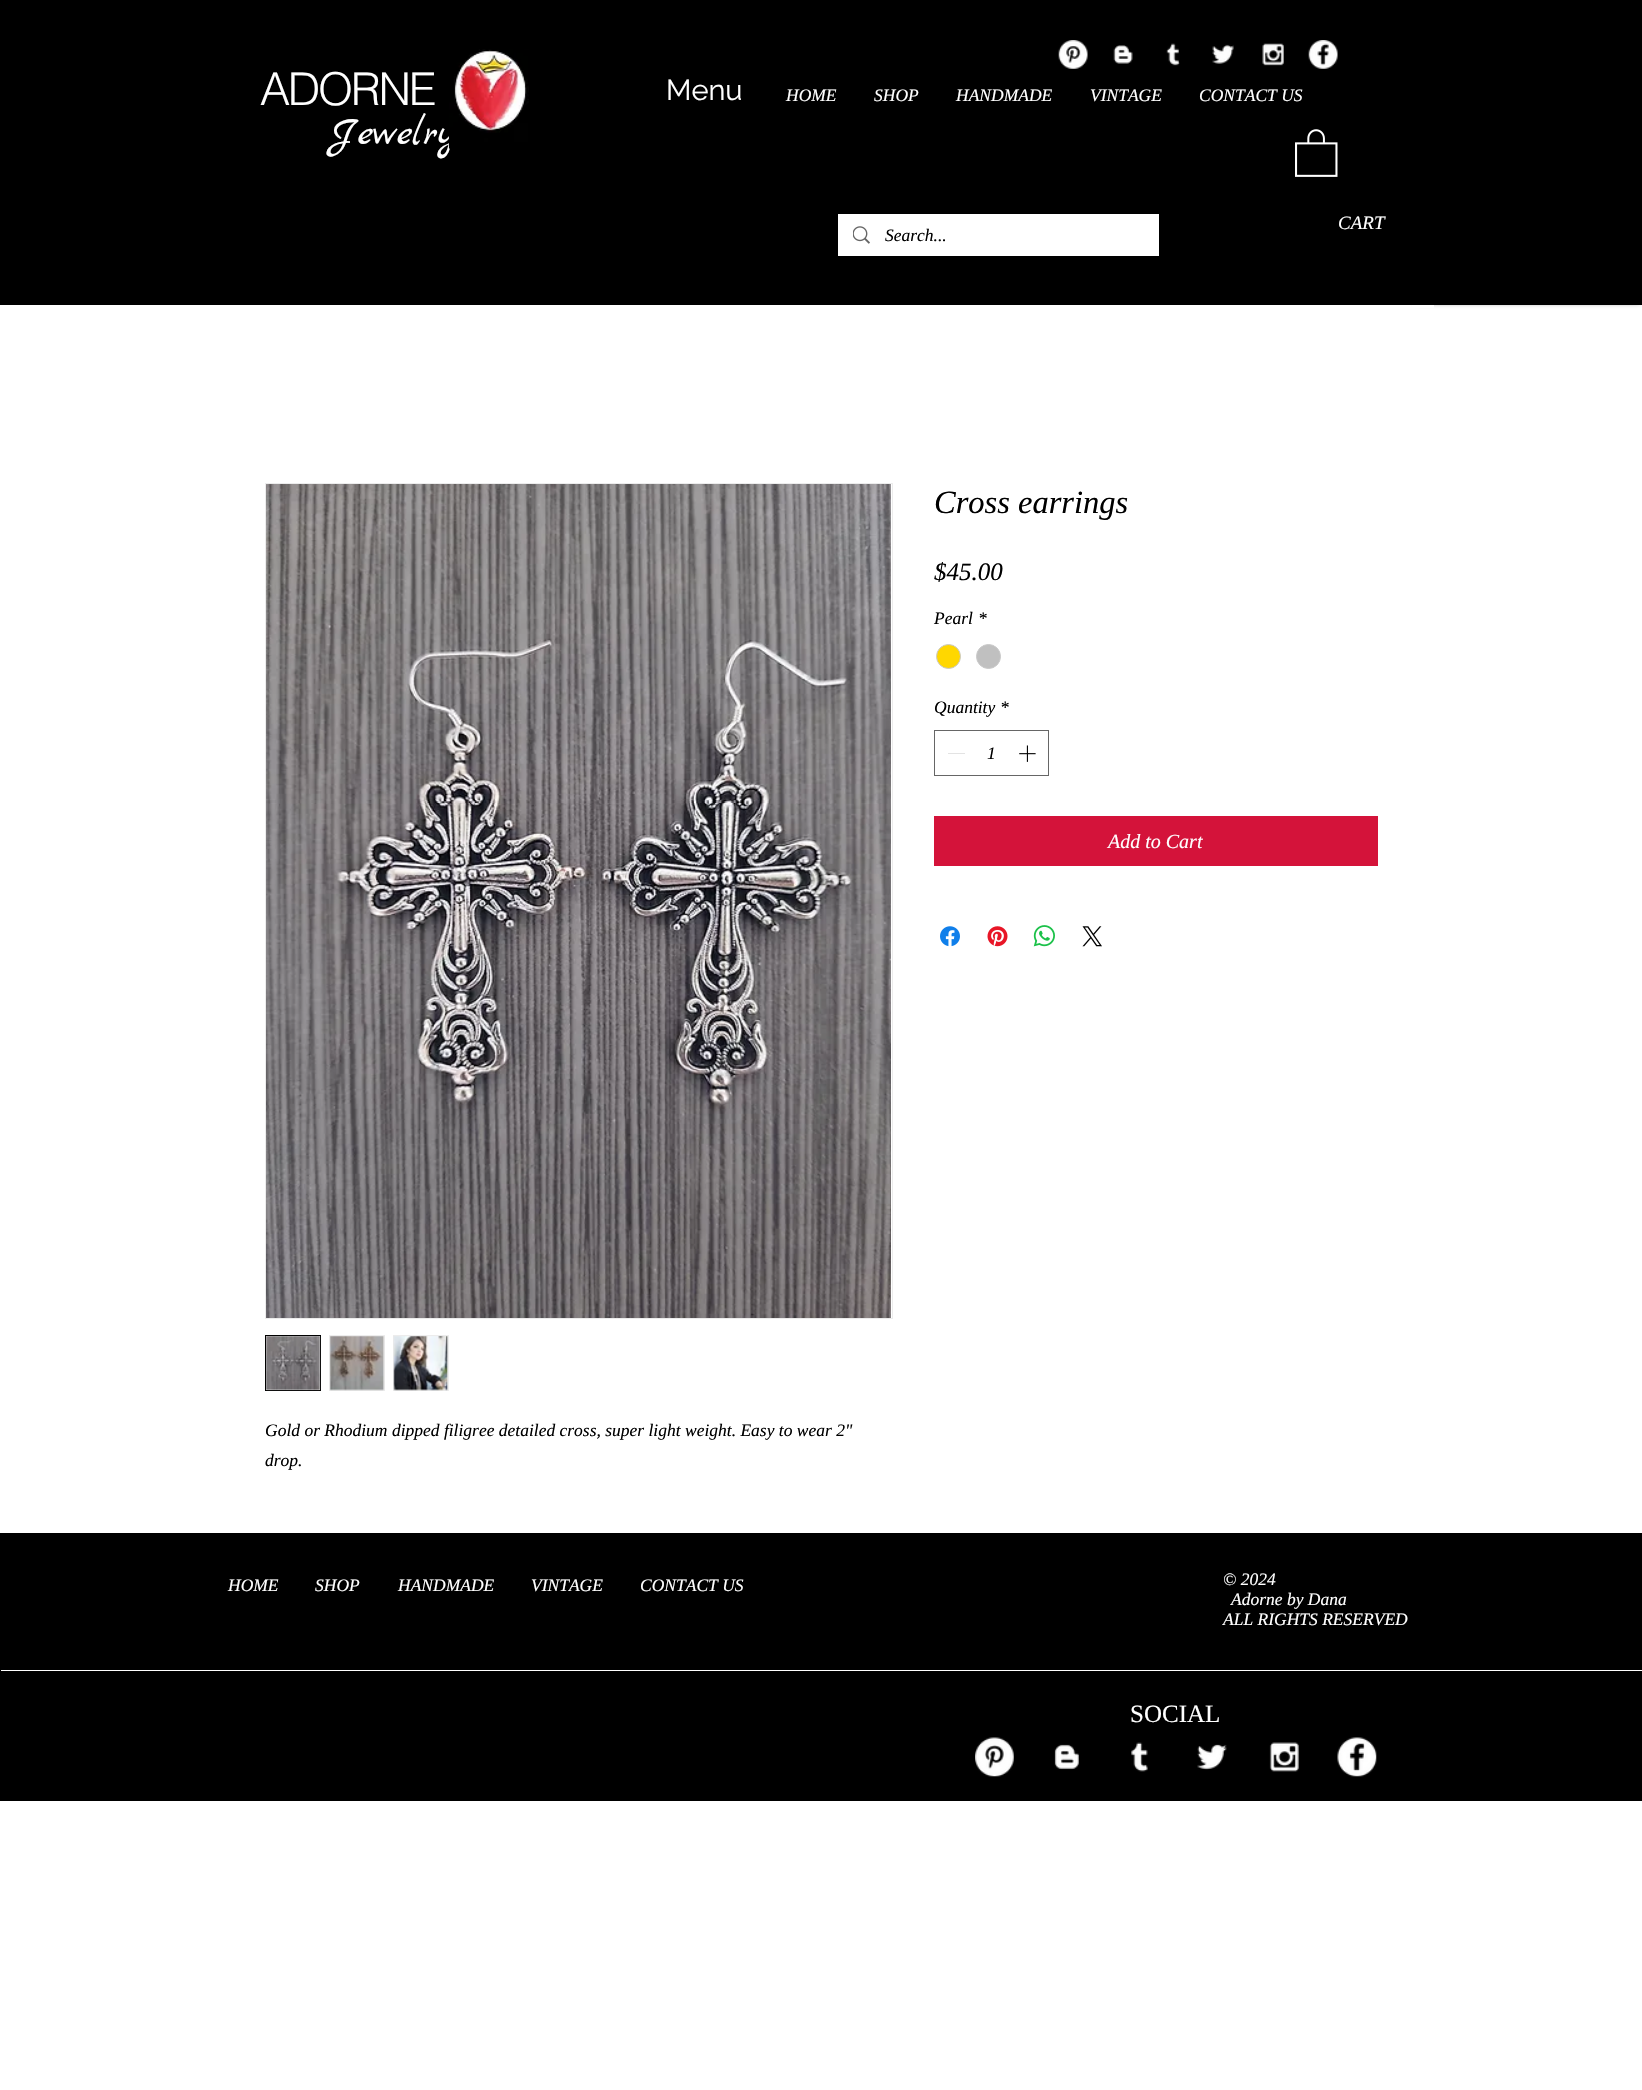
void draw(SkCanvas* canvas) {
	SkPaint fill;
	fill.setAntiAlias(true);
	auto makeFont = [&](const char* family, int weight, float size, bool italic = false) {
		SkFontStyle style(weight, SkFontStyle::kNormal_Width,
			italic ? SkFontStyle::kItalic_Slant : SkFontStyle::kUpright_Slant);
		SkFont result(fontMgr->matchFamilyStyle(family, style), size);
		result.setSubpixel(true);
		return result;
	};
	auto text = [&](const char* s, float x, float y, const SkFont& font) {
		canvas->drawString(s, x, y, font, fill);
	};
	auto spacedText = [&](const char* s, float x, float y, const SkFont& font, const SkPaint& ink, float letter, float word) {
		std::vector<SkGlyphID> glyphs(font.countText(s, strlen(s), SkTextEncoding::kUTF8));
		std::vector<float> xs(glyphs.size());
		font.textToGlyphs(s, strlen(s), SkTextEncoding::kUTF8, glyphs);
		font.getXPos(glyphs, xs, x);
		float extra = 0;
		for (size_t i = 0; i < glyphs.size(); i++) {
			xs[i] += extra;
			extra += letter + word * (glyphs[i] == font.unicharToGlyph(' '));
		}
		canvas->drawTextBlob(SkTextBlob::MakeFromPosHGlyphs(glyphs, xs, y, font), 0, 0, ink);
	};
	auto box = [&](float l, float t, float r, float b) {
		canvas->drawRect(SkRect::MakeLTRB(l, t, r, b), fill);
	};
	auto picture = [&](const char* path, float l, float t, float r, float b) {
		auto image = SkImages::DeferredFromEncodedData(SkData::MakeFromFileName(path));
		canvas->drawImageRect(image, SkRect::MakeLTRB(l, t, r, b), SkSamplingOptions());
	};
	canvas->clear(0xFFFFFFFF);
	fill.setColor(0xFF000000);
	box(0, 0, 1642, 305);
	picture("image1.png", 1058, 40, 1088, 69);
	picture("image2.png", 1113, 45, 1133, 64);
	picture("image3.png", 1166, 43, 1180, 66);
	picture("image4.png", 1212, 44, 1234, 64);
	picture("image5.png", 1262, 43, 1284, 66);
	picture("image6.png", 1308, 40, 1338, 69);
	picture("image7.png", 1295, 129, 1338, 177);
	fill.setColor(0xFFFFFFFF);
	box(838, 214, 1159, 256);
	picture("image8.png", 853, 226, 870, 244);
	canvas->save();
	canvas->clipPath(SkPathBuilder(SkPathFillType::kEvenOdd).moveTo(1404, 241).lineTo(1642, 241).lineTo(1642, 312).lineTo(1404, 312).close().moveTo(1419, 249).lineTo(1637, 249).cubicTo(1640.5f, 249, 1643, 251.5f, 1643, 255).lineTo(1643, 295).cubicTo(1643, 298.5f, 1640.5f, 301, 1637, 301).lineTo(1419, 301).cubicTo(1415.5f, 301, 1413, 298.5f, 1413, 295).lineTo(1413, 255).cubicTo(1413, 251.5f, 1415.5f, 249, 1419, 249).close().detach(), true);
	fill.setColor(0x99000000);
	fill.setMaskFilter(SkMaskFilter::MakeBlur(kNormal_SkBlurStyle, 2.5f));
	canvas->drawRoundRect(SkRect::MakeLTRB(1413, 250, 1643, 303), 6, 6, fill);
	fill.setMaskFilter(nullptr);
	canvas->restore();
	fill.setColor(0xFFFFFFFF);
	box(1412, 305, 1434, 308);
	fill.setColor(0xFFFFD700);
	canvas->drawCircle(948.5f, 656.5f, 12, fill);
	fill.setStyle(SkPaint::kStroke_Style);
	fill.setStrokeWidth(1);
	fill.setColor(0xFFC9C9C9);
	canvas->drawCircle(948.5f, 656.5f, 12, fill);
	fill.setStyle(SkPaint::kFill_Style);
	fill.setColor(0xFFC0C0C0);
	canvas->drawCircle(988.5f, 656.5f, 12, fill);
	fill.setStyle(SkPaint::kStroke_Style);
	fill.setColor(0xFFC9C9C9);
	canvas->drawCircle(988.5f, 656.5f, 12, fill);
	fill.setColor(0xFF666666);
	canvas->drawRect(SkRect::MakeLTRB(934.5f, 730.5f, 1048.5f, 775.5f), fill);
	fill.setStyle(SkPaint::kFill_Style);
	fill.setColor(0xFFE3E3E3);
	box(948, 753, 965, 754);
	picture("image9.png", 1019, 745, 1036, 762);
	fill.setColor(0xFFD4133A);
	box(934, 816, 1378, 866);
	picture("image10.png", 940, 926, 960, 947);
	picture("image11.png", 987, 926, 1008, 947);
	picture("image12.png", 1033, 925, 1055, 947);
	picture("image13.png", 1082, 926, 1102, 947);
	fill.setStyle(SkPaint::kStroke_Style);
	fill.setColor(0xFFECECEC);
	canvas->drawRect(SkRect::MakeLTRB(265.5f, 483.5f, 892.5f, 1318.5f), fill);
	picture("image14.png", 266, 484, 891, 1318);
	fill.setStyle(SkPaint::kFill_Style);
	canvas->drawRect(SkRect::MakeLTRB(265.5f, 1335.5f, 320.5f, 1390.5f), fill);
	fill.setStyle(SkPaint::kStroke_Style);
	fill.setColor(0xFF000000);
	canvas->drawRect(SkRect::MakeLTRB(265.5f, 1335.5f, 320.5f, 1390.5f), fill);
	picture("image15.png", 266, 1336, 321, 1391);
	fill.setStyle(SkPaint::kFill_Style);
	fill.setColor(0xFFECECEC);
	box(329, 1335, 385, 1391);
	picture("image16.png", 329, 1336, 385, 1391);
	box(393, 1335, 449, 1391);
	picture("image17.png", 393, 1336, 448, 1391);
	fill.setColor(0xFF000000);
	box(0, 1533, 1642, 1801);
	fill.setColor(0xFFFFFFFF);
	box(1, 1670, 1642, 1671);
	picture("image18.png", 975, 1737, 1014, 1777);
	picture("image19.png", 1054, 1744, 1079, 1770);
	picture("image20.png", 1131, 1742, 1148, 1772);
	picture("image21.png", 1197, 1744, 1227, 1770);
	picture("image22.png", 1269, 1742, 1299, 1772);
	picture("image23.png", 1337, 1737, 1377, 1777);
	auto font1 = makeFont("helvetica", 300, 45);
	spacedText("ADORNE", 260, 105, font1, fill, -2.25f, 0);
	auto font2 = makeFont("Raleway", 400, 29);
	text("Menu", 666, 100, font2);
	auto font3 = makeFont("Liberation Serif", 400, 17.5f, true);
	text("HOME", 786, 101, font3);
	text("SHOP", 874, 101, font3);
	text("HANDMADE", 956, 101, font3);
	text("VINTAGE", 1090, 101, font3);
	text("CONTACT US", 1199, 101, font3);
	auto font4 = makeFont("Marck Script", 400, 40);
	text("Jewelry", 330, 144, font4);
	picture("image0.png", 448, 49, 529, 149);
	auto font5 = makeFont("Liberation Serif", 400, 19, true);
	text("CART", 1338, 229, font5);
	fill.setColor(0xFF000000);
	text("Search...", 885, 241, font3);
	auto font6 = makeFont("Liberation Serif", 400, 32.5f, true);
	text("Cross earrings", 934, 513, font6);
	auto font7 = makeFont("Liberation Serif", 400, 25, true);
	text("$45.00", 934, 580, font7);
	text("Pearl", 934, 624, font3);
	text("*", 978, 624, font3);
	text("Quantity", 934, 713, font3);
	text("*", 1000, 713, font3);
	text("1", 987, 759, font3);
	auto font8 = makeFont("Liberation Serif", 400, 20, true);
	fill.setColor(0xFFFFFFFF);
	text("Add to Cart", 1108, 848, font8);
	fill.setColor(0xFF000000);
	text("Gold or Rhodium dipped filigree detailed cross, super light weight. Easy to wear 2\"", 265, 1436, font3);
	text("drop.", 265, 1466, font3);
	fill.setColor(0xFFFFFFFF);
	text("HOME", 228, 1591, font3);
	text("SHOP", 315, 1591, font3);
	text("HANDMADE", 398, 1591, font3);
	text("VINTAGE", 531, 1591, font3);
	text("CONTACT US", 640, 1591, font3);
	text("© 2024", 1223, 1585, font3);
	text("Adorne by Dana", 1231, 1605, font3);
	text("ALL RIGHTS RESERVED", 1223, 1625, font3);
	auto font9 = makeFont("Liberation Serif", 400, 25);
	text("SOCIAL", 1130, 1722, font9);
}
